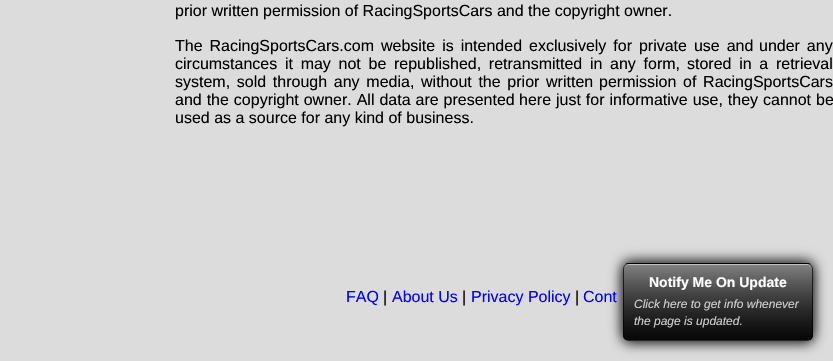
void draw(SkCanvas* canvas) {
	SkPaint fill;
	fill.setAntiAlias(true);
	auto makeFont = [&](const char* family, int weight, float size, bool italic = false) {
		SkFontStyle style(weight, SkFontStyle::kNormal_Width,
			italic ? SkFontStyle::kItalic_Slant : SkFontStyle::kUpright_Slant);
		SkFont result(fontMgr->matchFamilyStyle(family, style), size);
		result.setSubpixel(true);
		return result;
	};
	auto text = [&](const char* s, float x, float y, const SkFont& font) {
		canvas->drawString(s, x, y, font, fill);
	};
	auto spacedText = [&](const char* s, float x, float y, const SkFont& font, const SkPaint& ink, float letter, float word) {
		std::vector<SkGlyphID> glyphs(font.countText(s, strlen(s), SkTextEncoding::kUTF8));
		std::vector<float> xs(glyphs.size());
		font.textToGlyphs(s, strlen(s), SkTextEncoding::kUTF8, glyphs);
		font.getXPos(glyphs, xs, x);
		float extra = 0;
		for (size_t i = 0; i < glyphs.size(); i++) {
			xs[i] += extra;
			extra += letter + word * (glyphs[i] == font.unicharToGlyph(' '));
		}
		canvas->drawTextBlob(SkTextBlob::MakeFromPosHGlyphs(glyphs, xs, y, font), 0, 0, ink);
	};
	auto box = [&](float l, float t, float r, float b) {
		canvas->drawRect(SkRect::MakeLTRB(l, t, r, b), fill);
	};
	canvas->clear(0xFFDCDCDC);
	canvas->save();
	canvas->clipPath(SkPathBuilder(SkPathFillType::kEvenOdd).moveTo(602, 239).lineTo(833, 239).lineTo(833, 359).lineTo(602, 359).close().moveTo(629, 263).lineTo(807, 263).cubicTo(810.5f, 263, 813, 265.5f, 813, 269).lineTo(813, 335).cubicTo(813, 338.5f, 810.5f, 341, 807, 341).lineTo(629, 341).cubicTo(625.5f, 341, 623, 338.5f, 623, 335).lineTo(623, 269).cubicTo(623, 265.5f, 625.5f, 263, 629, 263).close().detach(), true);
	fill.setColor(0x99000000);
	fill.setMaskFilter(SkMaskFilter::MakeBlur(kNormal_SkBlurStyle, 6.5f));
	canvas->drawRoundRect(SkRect::MakeLTRB(623, 260, 813, 338), 6, 6, fill);
	fill.setMaskFilter(nullptr);
	canvas->restore();
	canvas->save();
	canvas->clipPath(SkPathBuilder(SkPathFillType::kEvenOdd).moveTo(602, 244).lineTo(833, 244).lineTo(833, 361).lineTo(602, 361).close().moveTo(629, 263).lineTo(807, 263).cubicTo(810.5f, 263, 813, 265.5f, 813, 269).lineTo(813, 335).cubicTo(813, 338.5f, 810.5f, 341, 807, 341).lineTo(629, 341).cubicTo(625.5f, 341, 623, 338.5f, 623, 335).lineTo(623, 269).cubicTo(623, 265.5f, 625.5f, 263, 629, 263).close().detach(), true);
	fill.setColor(0xCC000000);
	fill.setMaskFilter(SkMaskFilter::MakeBlur(kNormal_SkBlurStyle, 6.5f));
	canvas->drawRoundRect(SkRect::MakeLTRB(623, 265, 813, 343), 6, 6, fill);
	fill.setMaskFilter(nullptr);
	canvas->restore();
	canvas->save();
	canvas->clipPath(SkPathBuilder().moveTo(629, 263).lineTo(807, 263).cubicTo(810.5f, 263, 813, 265.5f, 813, 269).lineTo(813, 335).cubicTo(813, 338.5f, 810.5f, 341, 807, 341).lineTo(629, 341).cubicTo(625.5f, 341, 623, 338.5f, 623, 335).lineTo(623, 269).cubicTo(623, 265.5f, 625.5f, 263, 629, 263).close().detach(), true);
	{
		const SkColor colors[] = {0x66000000, 0xB3000000};
		const float stops[] = {0, 1};
		const SkPoint ends[] = {{718, 188}, {718, 264}};
		fill.setShader(SkGradientShader::MakeLinear(ends, colors, stops, 2, SkTileMode::kClamp));
		fill.setAlpha(255);
	}
	box(623, 263, 813, 264);
	{
		const SkColor colors[] = {0x66000000, 0xB3000000};
		const float stops[] = {0, 1};
		const SkPoint ends[] = {{718, 264}, {718, 340}};
		fill.setShader(SkGradientShader::MakeLinear(ends, colors, stops, 2, SkTileMode::kClamp));
		fill.setAlpha(255);
	}
	box(623, 264, 813, 340);
	{
		const SkColor colors[] = {0x66000000, 0xB3000000};
		const float stops[] = {0, 1};
		const SkPoint ends[] = {{718, 340}, {718, 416}};
		fill.setShader(SkGradientShader::MakeLinear(ends, colors, stops, 2, SkTileMode::kClamp));
		fill.setAlpha(255);
	}
	box(623, 340, 813, 341);
	{
		const SkColor colors[] = {0x00000000, 0xE6000000};
		const float stops[] = {0, 1};
		const SkPoint ends[] = {{718, 188}, {718, 264}};
		fill.setShader(SkGradientShader::MakeLinear(ends, colors, stops, 2, SkTileMode::kClamp));
		fill.setAlpha(255);
	}
	box(623, 263, 813, 264);
	{
		const SkColor colors[] = {0x00000000, 0xE6000000};
		const float stops[] = {0, 1};
		const SkPoint ends[] = {{718, 264}, {718, 340}};
		fill.setShader(SkGradientShader::MakeLinear(ends, colors, stops, 2, SkTileMode::kClamp));
		fill.setAlpha(255);
	}
	box(623, 266, 813, 340);
	canvas->restore();
	fill.setShader(nullptr);
	fill.setColor(0xFFC1C1C1);
	canvas->drawPath(SkPathBuilder().moveTo(629, 265).lineTo(807, 265).cubicTo(810, 265, 812, 267, 812, 270).cubicTo(812, 267, 811, 265, 808, 264).lineTo(628, 264).cubicTo(625, 265, 624, 267, 624, 270).cubicTo(624, 267, 626, 265, 629, 265).close().detach(), fill);
	fill.setStyle(SkPaint::kStroke_Style);
	fill.setStrokeWidth(1);
	fill.setColor(0xB3000000);
	canvas->drawRoundRect(SkRect::MakeLTRB(623.5f, 263.5f, 812.5f, 340.5f), 5.5f, 5.5f, fill);
	auto font1 = makeFont("Liberation Sans", 400, 16);
	fill.setStyle(SkPaint::kFill_Style);
	fill.setColor(0xFF000000);
	text("prior written permission of RacingSportsCars and the copyright owner.", 175, 16, font1);
	spacedText("The RacingSportsCars.com website is intended exclusively for private use and", 175, 51, font1, fill, 0, 2.5f);
	spacedText("under any", 759, 51, font1, fill, 0, 2.5f);
	spacedText("circumstances it may not be republished, retransmitted in any form,", 175, 69, font1, fill, 0, 3.25f);
	spacedText("stored in a retrieval", 687, 69, font1, fill, 0, 3.25f);
	spacedText("system, sold through any media, without the prior written", 175, 87, font1, fill, 0, 2.25f);
	spacedText("permission of RacingSportsCars", 599, 87, font1, fill, 0, 2.25f);
	spacedText("and the copyright owner. All data are presented", 175, 105, font1, fill, 0, 0.5f);
	spacedText("here just for informative use, they cannot be", 519, 105, font1, fill, 0, 0.5f);
	text("used as a source for any kind of business.", 175, 123, font1);
	fill.setColor(0xFF0000FF);
	text("FAQ", 346, 302, font1);
	fill.setColor(0xFF000000);
	text("|", 383, 302, font1);
	fill.setColor(0xFF0000FF);
	text("About Us", 392, 302, font1);
	fill.setColor(0xFF000000);
	text("|", 462, 302, font1);
	fill.setColor(0xFF0000FF);
	text("Privacy Policy", 471, 302, font1);
	fill.setColor(0xFF000000);
	text("|", 575, 302, font1);
	fill.setColor(0xFF0000FF);
	text("Cont", 583, 302, font1);
	auto font2 = makeFont("Liberation Sans", 700, 14);
	fill.setColor(0xFFFFFFFF);
	text("Notify Me On Update", 649, 287, font2);
	auto font3 = makeFont("Liberation Sans", 400, 12, true);
	fill.setColor(0xFFD0D0D0);
	text("Click here to get info whenever", 634, 308, font3);
	text("the page is updated.", 634, 325, font3);
}
